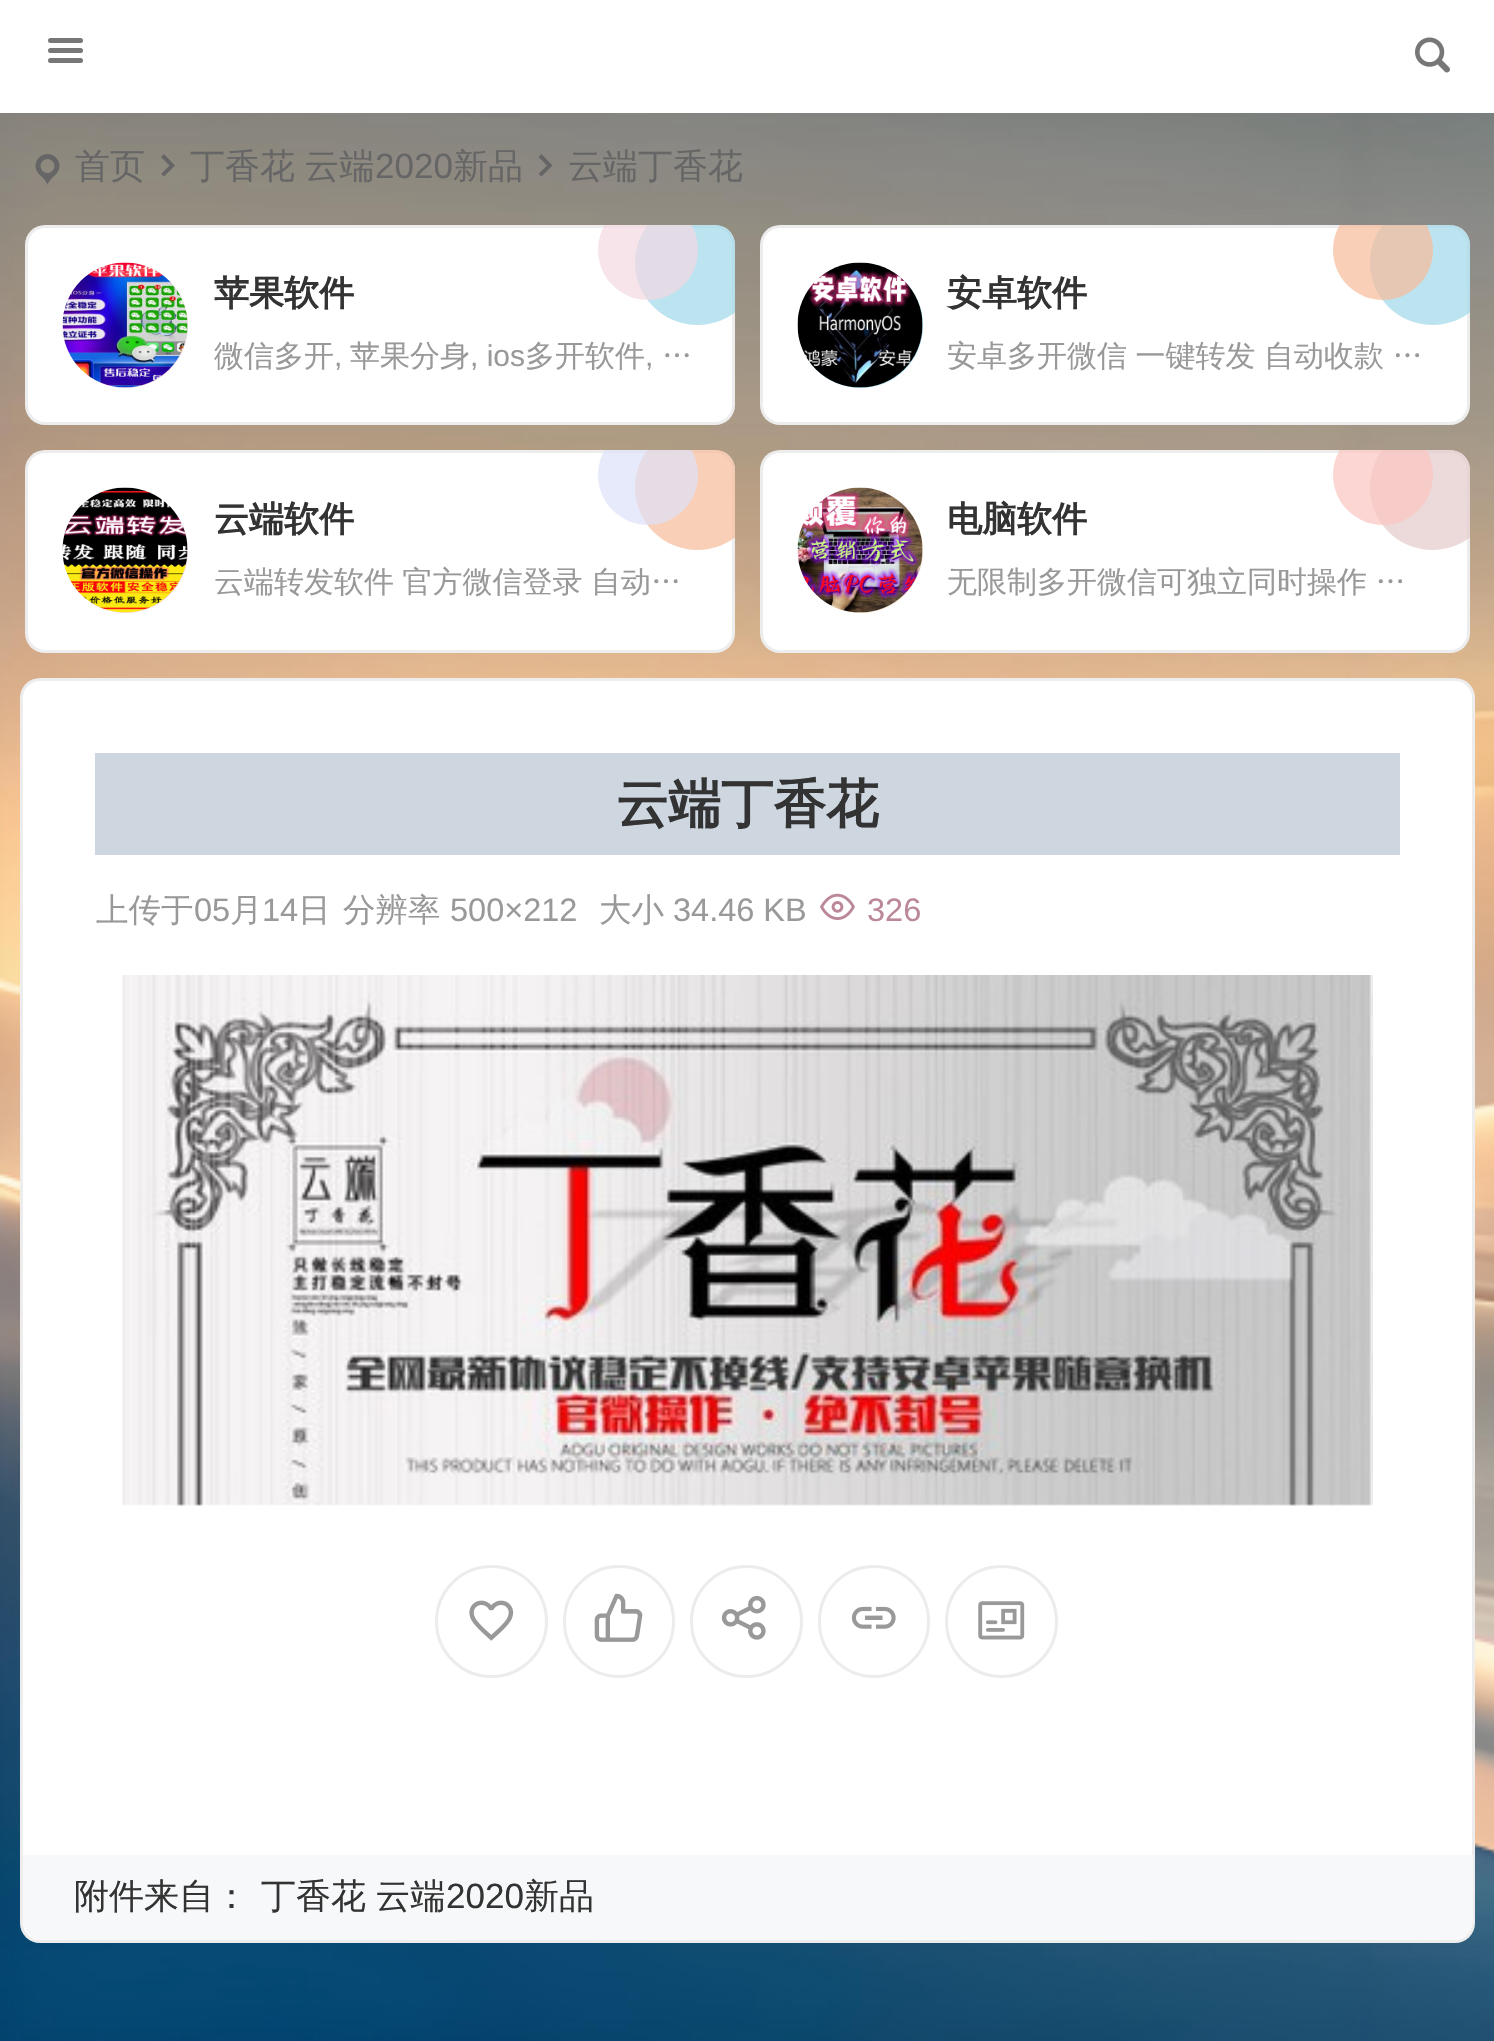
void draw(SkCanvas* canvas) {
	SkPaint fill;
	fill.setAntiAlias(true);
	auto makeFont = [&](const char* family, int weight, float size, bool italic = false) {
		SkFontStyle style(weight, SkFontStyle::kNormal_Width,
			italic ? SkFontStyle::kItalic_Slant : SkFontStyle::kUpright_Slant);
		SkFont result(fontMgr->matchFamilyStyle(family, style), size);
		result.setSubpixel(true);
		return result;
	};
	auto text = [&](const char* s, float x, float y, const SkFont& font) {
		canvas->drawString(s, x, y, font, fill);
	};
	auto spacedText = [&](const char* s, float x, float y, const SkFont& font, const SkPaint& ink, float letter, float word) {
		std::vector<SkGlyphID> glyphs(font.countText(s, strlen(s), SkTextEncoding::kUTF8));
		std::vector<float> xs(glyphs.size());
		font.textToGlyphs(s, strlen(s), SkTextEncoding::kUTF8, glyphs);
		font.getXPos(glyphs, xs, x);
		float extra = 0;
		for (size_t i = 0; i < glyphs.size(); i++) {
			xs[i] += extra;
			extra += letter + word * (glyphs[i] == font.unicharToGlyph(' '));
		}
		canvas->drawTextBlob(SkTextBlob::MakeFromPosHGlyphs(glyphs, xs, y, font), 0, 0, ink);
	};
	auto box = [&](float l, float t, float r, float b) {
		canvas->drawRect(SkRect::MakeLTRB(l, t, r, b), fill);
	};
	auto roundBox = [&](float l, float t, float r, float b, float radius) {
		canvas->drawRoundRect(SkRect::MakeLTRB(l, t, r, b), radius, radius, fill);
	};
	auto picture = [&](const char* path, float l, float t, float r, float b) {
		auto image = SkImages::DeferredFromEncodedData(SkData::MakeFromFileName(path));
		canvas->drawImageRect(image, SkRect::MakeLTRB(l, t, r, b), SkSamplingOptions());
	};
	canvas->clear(0xFFFFFFFF);
	picture("image0.png", 0, 113, 1494, 2041);
	picture("image2.png", 35, 154, 60, 185);
	fill.setColor(0xFF666666);
	canvas->drawPath(SkPathBuilder().moveTo(161, 174).lineTo(169.5f, 165.5f).lineTo(161, 157).lineTo(164, 154).lineTo(175, 165.5f).lineTo(164, 176.5f).close().detach(), fill);
	canvas->drawPath(SkPathBuilder().moveTo(538.5f, 174).lineTo(547, 165.5f).lineTo(538.5f, 157).lineTo(541.5f, 154).lineTo(552.5f, 165.5f).lineTo(541.5f, 176.5f).close().detach(), fill);
	fill.setColor(0xFFFFFFFF);
	roundBox(25, 225, 735, 425, 20);
	fill.setStyle(SkPaint::kStroke_Style);
	fill.setStrokeWidth(3);
	fill.setColor(0x12000000);
	canvas->drawRoundRect(SkRect::MakeLTRB(26.5f, 226.5f, 733.5f, 423.5f), 18.5f, 18.5f, fill);
	canvas->save();
	canvas->clipPath(SkPathBuilder().moveTo(45, 225).lineTo(715, 225).cubicTo(726, 225, 735, 234, 735, 245).lineTo(735, 405).cubicTo(735, 416, 726, 425, 715, 425).lineTo(45, 425).cubicTo(34, 425, 25, 416, 25, 405).lineTo(25, 245).cubicTo(25, 234, 34, 225, 45, 225).close().detach(), true);
	fill.setStyle(SkPaint::kFill_Style);
	fill.setColor(0xB39FD8E9);
	canvas->drawCircle(697.5f, 262.5f, 62.5f, fill);
	fill.setColor(0xB3F3D8E1);
	canvas->drawCircle(648, 250, 50, fill);
	canvas->restore();
	fill.setColor(0xFFFFFFFF);
	roundBox(760, 225, 1470, 425, 20);
	fill.setStyle(SkPaint::kStroke_Style);
	fill.setColor(0x12000000);
	canvas->drawRoundRect(SkRect::MakeLTRB(761.5f, 226.5f, 1468.5f, 423.5f), 18.5f, 18.5f, fill);
	canvas->save();
	canvas->clipPath(SkPathBuilder().moveTo(780, 225).lineTo(1450, 225).cubicTo(1461, 225, 1470, 234, 1470, 245).lineTo(1470, 405).cubicTo(1470, 416, 1461, 425, 1450, 425).lineTo(780, 425).cubicTo(769, 425, 760, 416, 760, 405).lineTo(760, 245).cubicTo(760, 234, 769, 225, 780, 225).close().detach(), true);
	fill.setStyle(SkPaint::kFill_Style);
	fill.setColor(0xB39FD8E9);
	canvas->drawCircle(1432.5f, 262.5f, 62.5f, fill);
	fill.setColor(0xB3F8BB99);
	canvas->drawCircle(1383, 250, 50, fill);
	canvas->restore();
	fill.setColor(0x0F000000);
	fill.setMaskFilter(SkMaskFilter::MakeBlur(kNormal_SkBlurStyle, 37.5f));
	canvas->drawRect(SkRect::MakeLTRB(0, 8, 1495, 120), fill);
	fill.setMaskFilter(nullptr);
	fill.setColor(0xFFFFFFFF);
	box(0, 0, 1494, 113);
	fill.setColor(0xFF777777);
	roundBox(48, 48, 83, 53, 2.5f);
	roundBox(48, 38, 83, 43, 2.5f);
	roundBox(48, 58, 83, 63, 2.5f);
	picture("image1.png", 1415, 37, 1450, 73);
	fill.setColor(0xFFF3D8E1);
	canvas->drawCircle(125.5f, 325.5f, 62.5f, fill);
	picture("image3.png", 62, 262, 188, 388);
	fill.setColor(0xFF9FD8E9);
	canvas->drawCircle(860.5f, 325.5f, 62.5f, fill);
	picture("image4.png", 797, 262, 923, 388);
	fill.setColor(0xFFFFFFFF);
	roundBox(25, 450, 735, 653, 20);
	fill.setStyle(SkPaint::kStroke_Style);
	fill.setColor(0x12000000);
	canvas->drawRoundRect(SkRect::MakeLTRB(26.5f, 451.5f, 733.5f, 651.5f), 18.5f, 18.5f, fill);
	canvas->save();
	canvas->clipPath(SkPathBuilder().moveTo(45, 450).lineTo(715, 450).cubicTo(726, 450, 735, 459, 735, 470).lineTo(735, 633).cubicTo(735, 644, 726, 653, 715, 653).lineTo(45, 653).cubicTo(34, 653, 25, 644, 25, 633).lineTo(25, 470).cubicTo(25, 459, 34, 450, 45, 450).close().detach(), true);
	fill.setStyle(SkPaint::kFill_Style);
	fill.setColor(0xB3F8BB99);
	canvas->drawCircle(697.5f, 487.5f, 62.5f, fill);
	fill.setColor(0xB3DDE1F8);
	canvas->drawCircle(648, 475, 50, fill);
	canvas->restore();
	fill.setColor(0xFFF3D8E1);
	canvas->drawCircle(125.5f, 550.5f, 62.5f, fill);
	picture("image5.png", 62, 487, 188, 613);
	fill.setColor(0xFFFFFFFF);
	roundBox(760, 450, 1470, 653, 20);
	fill.setStyle(SkPaint::kStroke_Style);
	fill.setColor(0x12000000);
	canvas->drawRoundRect(SkRect::MakeLTRB(761.5f, 451.5f, 1468.5f, 651.5f), 18.5f, 18.5f, fill);
	canvas->save();
	canvas->clipPath(SkPathBuilder().moveTo(780, 450).lineTo(1450, 450).cubicTo(1461, 450, 1470, 459, 1470, 470).lineTo(1470, 633).cubicTo(1470, 644, 1461, 653, 1450, 653).lineTo(780, 653).cubicTo(769, 653, 760, 644, 760, 633).lineTo(760, 470).cubicTo(760, 459, 769, 450, 780, 450).close().detach(), true);
	fill.setStyle(SkPaint::kFill_Style);
	fill.setColor(0xB3E4CBCA);
	canvas->drawCircle(1432.5f, 487.5f, 62.5f, fill);
	fill.setColor(0xB3FBC4BF);
	canvas->drawCircle(1383, 475, 50, fill);
	canvas->restore();
	fill.setColor(0xFFEBD8C4);
	canvas->drawCircle(860.5f, 550.5f, 62.5f, fill);
	picture("image6.png", 797, 487, 923, 613);
	fill.setColor(0xFFFFFFFF);
	roundBox(20, 678, 1475, 1943, 20);
	fill.setStyle(SkPaint::kStroke_Style);
	fill.setColor(0x12000000);
	canvas->drawRoundRect(SkRect::MakeLTRB(21.5f, 679.5f, 1473.5f, 1941.5f), 18.5f, 18.5f, fill);
	fill.setStyle(SkPaint::kFill_Style);
	fill.setColor(0xFFCED6E0);
	box(95, 753, 1400, 855);
	picture("image7.png", 820, 893, 855, 920);
	picture("image8.png", 122, 975, 1373, 1506);
	fill.setStyle(SkPaint::kStroke_Style);
	fill.setColor(0xFFECECEC);
	canvas->drawCircle(491.5f, 1621.5f, 55, fill);
	picture("image9.png", 469, 1600, 514, 1641);
	canvas->drawRoundRect(SkRect::MakeLTRB(564.5f, 1566.5f, 673.5f, 1676.5f), 54.5f, 54.5f, fill);
	picture("image10.png", 594, 1593, 643, 1642);
	canvas->drawCircle(746.5f, 1621.5f, 55, fill);
	picture("image11.png", 721, 1595, 766, 1640);
	canvas->drawRoundRect(SkRect::MakeLTRB(819.5f, 1566.5f, 928.5f, 1676.5f), 54.5f, 54.5f, fill);
	picture("image12.png", 851, 1606, 896, 1629);
	canvas->drawCircle(1001.5f, 1621.5f, 55, fill);
	picture("image13.png", 978, 1601, 1025, 1640);
	fill.setStyle(SkPaint::kFill_Style);
	fill.setColor(0xFFF7F8F9);
	canvas->drawPath(SkPathBuilder().moveTo(23, 1855).lineTo(1473, 1855).lineTo(1473, 1920).cubicTo(1473, 1931, 1464, 1940, 1453, 1940).lineTo(43, 1940).cubicTo(32, 1940, 23, 1931, 23, 1920).close().detach(), fill);
	auto font1 = makeFont("WenQuanYi Zen Hei", 500, 35);
	fill.setColor(0xFF666666);
	text("首页", 75, 178, font1);
	spacedText("丁香花 云端", 190, 178, font1, fill, 0, -1);
	auto font2 = makeFont("Liberation Sans", 400, 35);
	text("2020", 375, 178, font2);
	text("新品", 453, 178, font1);
	text("云端丁香花", 568, 178, font1);
	auto font3 = makeFont("WenQuanYi Zen Hei", 700, 35);
	fill.setColor(0xFF333333);
	text("苹果软件", 214, 305, font3);
	auto font4 = makeFont("WenQuanYi Zen Hei", 500, 30);
	fill.setColor(0xFF999999);
	text("微信多开", 214, 366, font4);
	text("苹果分身", 350, 366, font4);
	auto font5 = makeFont("Liberation Sans", 400, 30);
	text(", ios", 470, 366, font5);
	text("多开软件", 525, 366, font4);
	text("…", 662, 366, font4);
	text(",", 334, 366, font5);
	text(",", 645, 366, font5);
	fill.setColor(0xFF333333);
	text("安卓软件", 947, 305, font3);
	fill.setColor(0xFF999999);
	spacedText("安卓多开微信 一键转发 自动收款 …", 947, 366, font4, fill, 0, -0.5f);
	fill.setColor(0xFF333333);
	text("云端软件", 214, 531, font3);
	fill.setColor(0xFF999999);
	spacedText("云端转发软件 官方微信登录 自动…", 214, 592, font4, fill, 0, -0.5f);
	fill.setColor(0xFF333333);
	text("电脑软件", 947, 531, font3);
	fill.setColor(0xFF999999);
	spacedText("无限制多开微信可独立同时操作 …", 947, 592, font4, fill, 0, -0.5f);
	auto font6 = makeFont("WenQuanYi Zen Hei", 700, 52.5f);
	fill.setColor(0xFF333333);
	text("云端丁香花", 616, 822, font6);
	auto font7 = makeFont("WenQuanYi Zen Hei", 500, 32.5f);
	fill.setColor(0xFF999999);
	text("上传于", 96, 921, font7);
	auto font8 = makeFont("Liberation Sans", 400, 32.5f);
	text("05", 194, 921, font8);
	text("月", 230, 921, font7);
	text("14", 262, 921, font8);
	text("日", 298, 921, font7);
	text("分辨率", 343, 921, font7);
	text("500×212", 450, 921, font8);
	text("大小", 599, 921, font7);
	text("34.46 KB", 673, 921, font8);
	fill.setColor(0xFFBB8899);
	text("326", 867, 921, font8);
	fill.setColor(0xFF333333);
	text("附件来自：", 74, 1908, font1);
	spacedText("丁香花 云端", 261, 1908, font1, fill, 0, -1);
	text("2020", 446, 1908, font2);
	text("新品", 524, 1908, font1);
}
